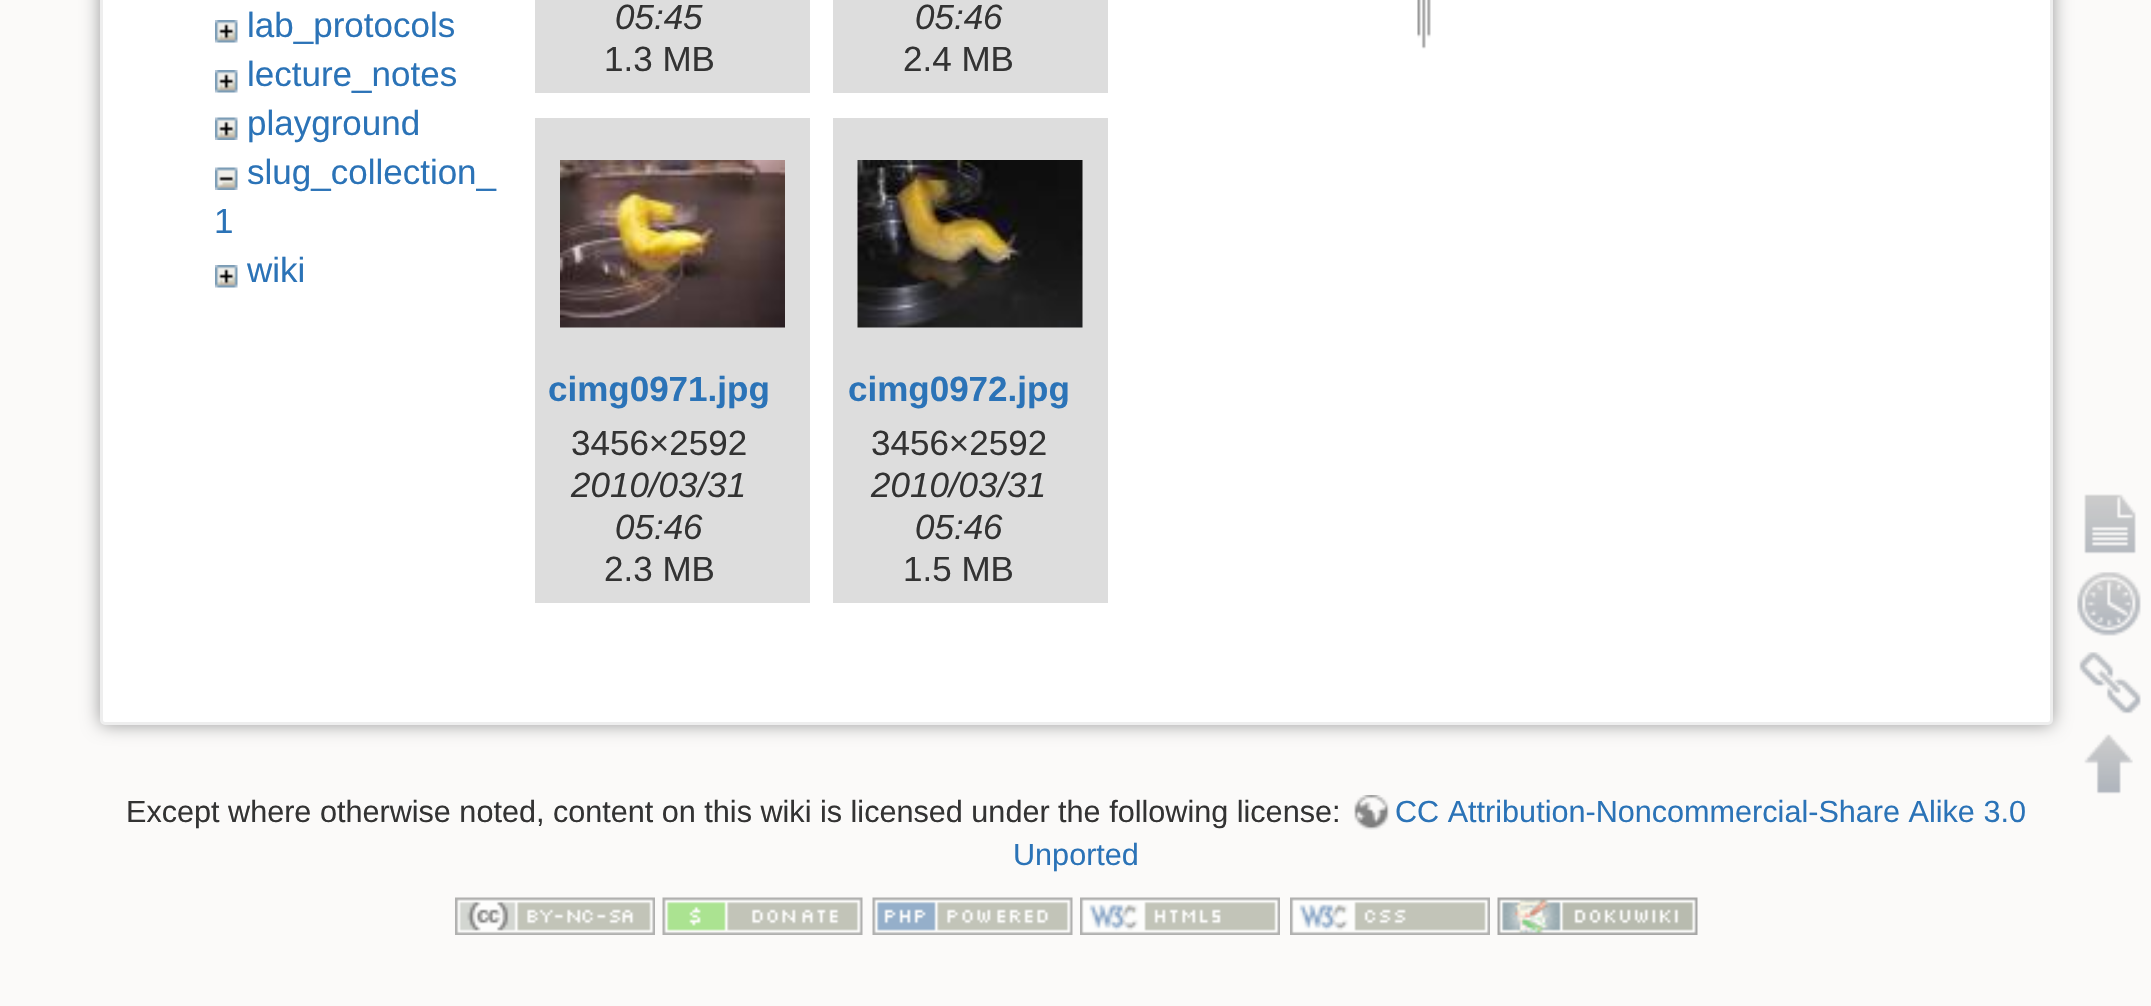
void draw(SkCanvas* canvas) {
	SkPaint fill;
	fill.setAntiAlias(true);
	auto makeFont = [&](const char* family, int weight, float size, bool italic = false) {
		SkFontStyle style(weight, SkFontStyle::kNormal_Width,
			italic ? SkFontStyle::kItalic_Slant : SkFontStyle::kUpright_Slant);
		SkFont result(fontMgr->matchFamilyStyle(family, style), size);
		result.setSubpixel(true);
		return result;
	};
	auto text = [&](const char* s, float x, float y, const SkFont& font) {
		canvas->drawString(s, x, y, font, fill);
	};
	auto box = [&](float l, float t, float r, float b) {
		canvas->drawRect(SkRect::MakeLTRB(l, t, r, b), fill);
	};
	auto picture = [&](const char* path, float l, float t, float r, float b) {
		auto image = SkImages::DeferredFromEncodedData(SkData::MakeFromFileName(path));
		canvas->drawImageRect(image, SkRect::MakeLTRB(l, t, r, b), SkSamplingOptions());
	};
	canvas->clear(0xFFFBFAF9);
	fill.setColor(0xFF999999);
	fill.setMaskFilter(SkMaskFilter::MakeBlur(kNormal_SkBlurStyle, 9));
	canvas->drawRoundRect(SkRect::MakeLTRB(100, -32, 2053, 725), 5, 5, fill);
	fill.setMaskFilter(nullptr);
	fill.setColor(0xFFFFFFFF);
	canvas->drawRoundRect(SkRect::MakeLTRB(101.5f, -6.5f, 2051.5f, 723.5f), 3.5f, 3.5f, fill);
	fill.setStyle(SkPaint::kStroke_Style);
	fill.setStrokeWidth(3);
	fill.setColor(0xFFEEEEEE);
	canvas->drawRoundRect(SkRect::MakeLTRB(101.5f, -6.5f, 2051.5f, 723.5f), 3.5f, 3.5f, fill);
	picture("image0.png", 215, 20, 238, 43);
	picture("image0.png", 215, 70, 238, 93);
	picture("image1.png", 215, 117, 238, 140);
	picture("image2.png", 215, 167, 238, 190);
	picture("image0.png", 215, 265, 238, 288);
	fill.setStyle(SkPaint::kFill_Style);
	fill.setColor(0xFFDDDDDD);
	box(535, 0, 810, 93);
	box(833, 0, 1108, 93);
	box(535, 118, 810, 603);
	picture("image3.png", 560, 160, 785, 328);
	box(833, 118, 1108, 603);
	picture("image4.png", 857, 160, 1083, 328);
	picture("image5.png", 1417, 0, 1431, 49);
	picture("image6.png", 2084, 494, 2136, 554);
	picture("image7.png", 2077, 572, 2141, 636);
	picture("image8.png", 2079, 652, 2141, 714);
	picture("image9.png", 2084, 734, 2133, 794);
	picture("image10.png", 1354, 795, 1390, 830);
	picture("image11.png", 455, 897, 655, 935);
	picture("image12.png", 662, 897, 863, 935);
	picture("image13.png", 872, 897, 1073, 935);
	picture("image14.png", 1080, 897, 1280, 935);
	picture("image15.png", 1290, 897, 1490, 935);
	picture("image16.png", 1497, 897, 1698, 935);
	auto font1 = makeFont("Liberation Sans", 400, 35);
	fill.setColor(0xFF2B73B7);
	text("lab_protocols", 247, 37, font1);
	text("lecture_notes", 247, 86, font1);
	text("playground", 247, 135, font1);
	text("slug_collection_", 247, 184, font1);
	text("1", 214, 233, font1);
	text("wiki", 247, 282, font1);
	auto font2 = makeFont("Liberation Sans", 400, 35, true);
	fill.setColor(0xFF333333);
	text("05:45", 615, 29, font2);
	text("1.3 MB", 604, 71, font1);
	text("05:46", 915, 29, font2);
	text("2.4 MB", 903, 71, font1);
	auto font3 = makeFont("Liberation Sans", 700, 35);
	fill.setColor(0xFF2B73B7);
	text("cimg0971.jpg", 548, 401, font3);
	fill.setColor(0xFF333333);
	text("3456×2592", 571, 455, font1);
	text("2010/03/31", 571, 497, font2);
	text("05:46", 615, 539, font2);
	text("2.3 MB", 604, 581, font1);
	fill.setColor(0xFF2B73B7);
	text("cimg0972.jpg", 848, 401, font3);
	fill.setColor(0xFF333333);
	text("3456×2592", 871, 455, font1);
	text("2010/03/31", 871, 497, font2);
	text("05:46", 915, 539, font2);
	text("1.5 MB", 903, 581, font1);
	auto font4 = makeFont("Liberation Sans", 400, 30.6f);
	text("Except where otherwise noted, content on this wiki is licensed under the following license:", 126, 822, font4);
	fill.setColor(0xFF2B73B7);
	text("CC Attribution-Noncommercial-Share Alike 3.0", 1395, 822, font4);
	text("Unported", 1013, 865, font4);
}
